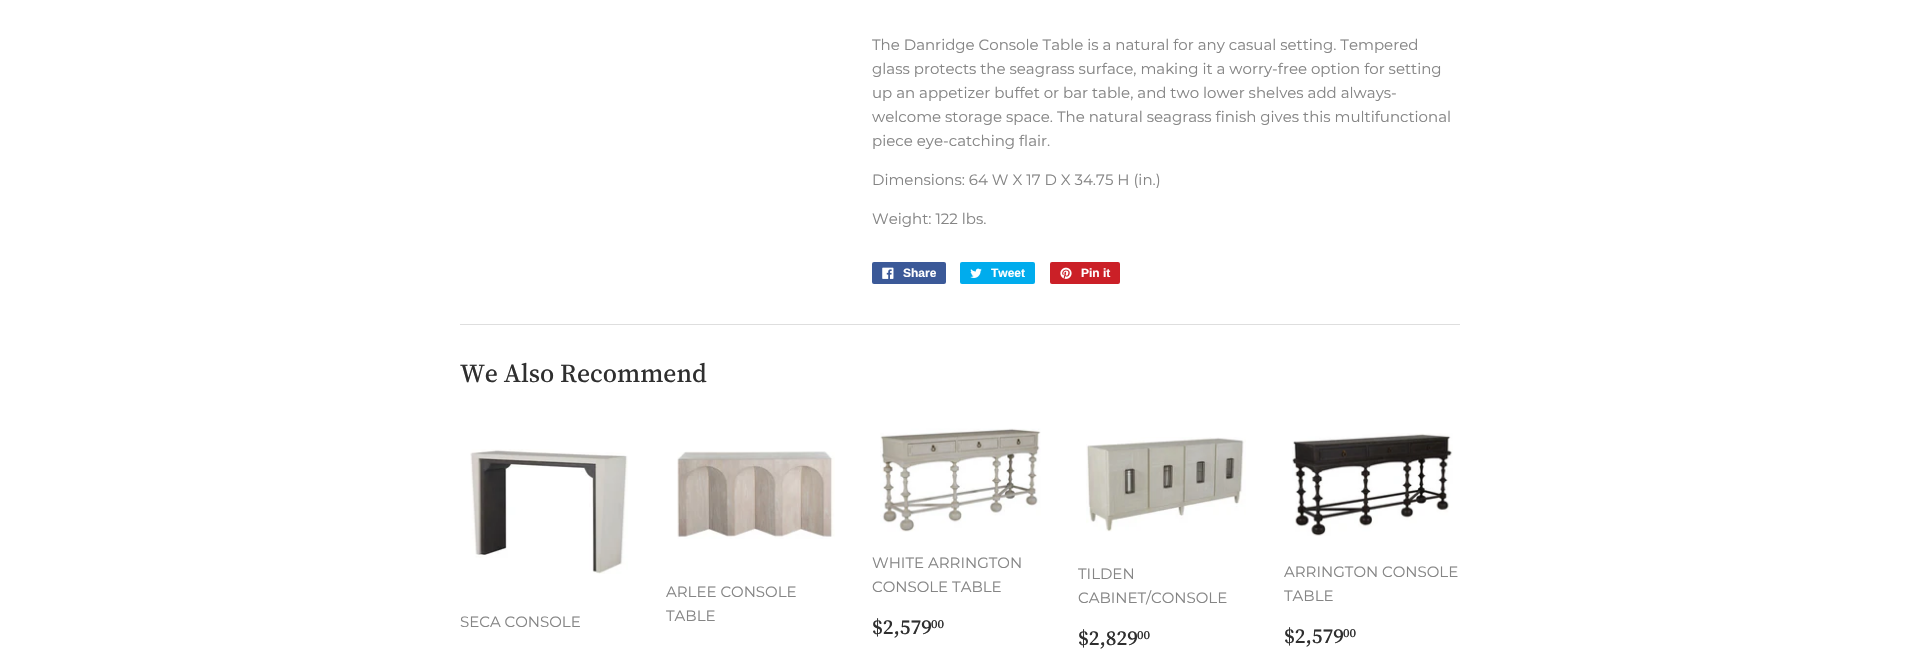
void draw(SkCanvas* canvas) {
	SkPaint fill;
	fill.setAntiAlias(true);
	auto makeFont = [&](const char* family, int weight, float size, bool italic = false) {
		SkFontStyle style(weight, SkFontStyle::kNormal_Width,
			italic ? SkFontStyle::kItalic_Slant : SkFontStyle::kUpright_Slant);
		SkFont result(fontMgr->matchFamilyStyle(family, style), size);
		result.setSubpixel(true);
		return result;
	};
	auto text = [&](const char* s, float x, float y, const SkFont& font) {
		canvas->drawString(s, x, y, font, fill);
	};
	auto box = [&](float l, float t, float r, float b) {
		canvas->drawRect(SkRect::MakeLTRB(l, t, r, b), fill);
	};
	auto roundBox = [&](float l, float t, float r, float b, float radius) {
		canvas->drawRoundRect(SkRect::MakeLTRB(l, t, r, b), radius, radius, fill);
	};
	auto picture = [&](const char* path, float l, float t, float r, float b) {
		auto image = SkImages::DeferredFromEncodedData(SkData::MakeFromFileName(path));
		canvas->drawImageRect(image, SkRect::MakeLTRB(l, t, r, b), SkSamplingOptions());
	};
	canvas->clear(0xFFFFFFFF);
	fill.setColor(0xFF3B5998);
	roundBox(872, 262, 946, 284, 2);
	picture("image0.png", 882, 267, 894, 279);
	fill.setColor(0xFF00ACED);
	roundBox(960, 262, 1035, 284, 2);
	picture("image1.png", 970, 268, 982, 278);
	fill.setColor(0xFFCB2027);
	roundBox(1050, 262, 1120, 284, 2);
	picture("image2.png", 1060, 267, 1072, 279);
	fill.setColor(0xFFDEDEDE);
	box(460, 324, 1460, 325);
	picture("image3.png", 470, 449, 628, 574);
	picture("image4.png", 677, 451, 835, 539);
	picture("image5.png", 880, 428, 1041, 532);
	picture("image6.png", 1086, 437, 1246, 532);
	picture("image7.png", 1292, 433, 1453, 536);
	auto font1 = makeFont("Montserrat", 400, 15);
	fill.setColor(0xFF858585);
	text("The Danridge Console Table is a natural for any casual setting. Tempered", 872, 50, font1);
	text("glass protects the seagrass surface, making it a worry-free option for setting", 872, 74, font1);
	text("up an appetizer buffet or bar table, and two lower shelves add always-", 872, 98, font1);
	text("welcome storage space. The natural seagrass finish gives this multifunctional", 872, 122, font1);
	text("piece eye-catching flair.", 872, 146, font1);
	text("Dimensions: 64 W X 17 D X 34.75 H (in.)", 872, 185, font1);
	text("Weight: 122 lbs.", 872, 224, font1);
	auto font2 = makeFont("Liberation Sans", 700, 12);
	fill.setColor(0xFFFFFFFF);
	text("Share", 903, 277, font2);
	text("Tweet", 991, 277, font2);
	text("Pin it", 1081, 277, font2);
	auto font3 = makeFont("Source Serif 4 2", 500, 26);
	fill.setColor(0xFF2F2F2F);
	text("We Also Recommend", 460, 382, font3);
	fill.setColor(0xFF858585);
	text("SECA CONSOLE", 460, 627, font1);
	text("ARLEE CONSOLE", 666, 597, font1);
	text("TABLE", 666, 621, font1);
	text("WHITE ARRINGTON", 872, 568, font1);
	text("CONSOLE TABLE", 872, 592, font1);
	auto font4 = makeFont("Source Serif 4", 500, 21);
	fill.setColor(0xFF2F2F2F);
	text("$2,579", 872, 634, font4);
	auto font5 = makeFont("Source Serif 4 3", 500, 12);
	text("00", 931, 628, font5);
	fill.setColor(0xFF858585);
	text("TILDEN", 1078, 579, font1);
	text("CABINET/CONSOLE", 1078, 603, font1);
	fill.setColor(0xFF2F2F2F);
	text("$2,829", 1078, 645, font4);
	text("00", 1137, 639, font5);
	fill.setColor(0xFF858585);
	text("ARRINGTON CONSOLE", 1284, 577, font1);
	text("TABLE", 1284, 601, font1);
	fill.setColor(0xFF2F2F2F);
	text("$2,579", 1284, 643, font4);
	text("00", 1343, 637, font5);
}
